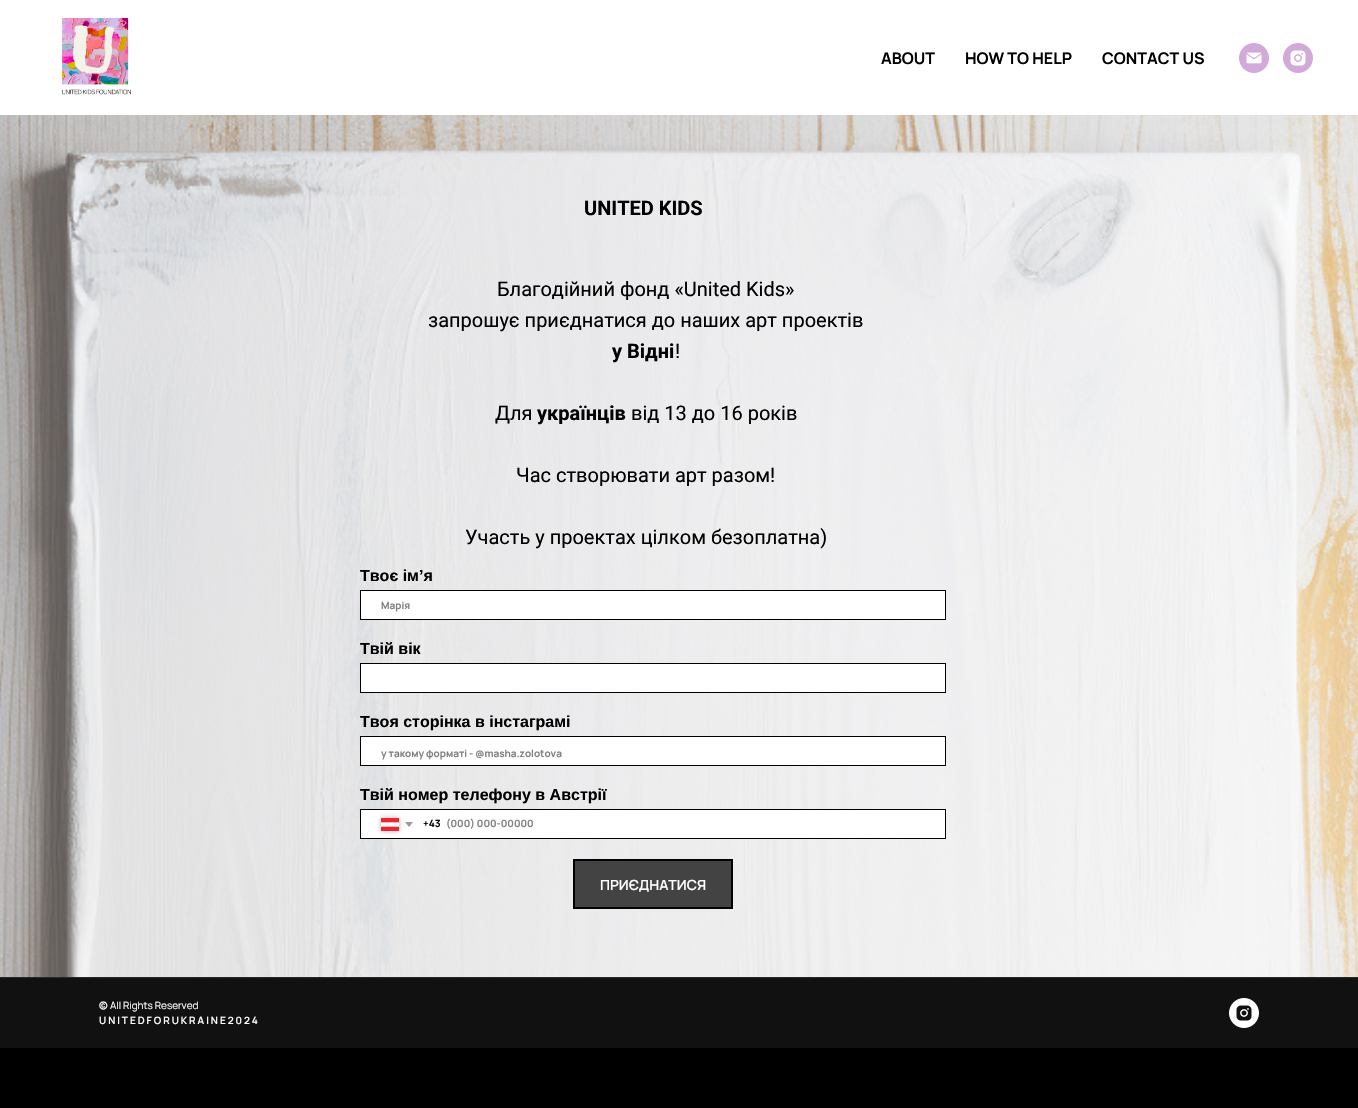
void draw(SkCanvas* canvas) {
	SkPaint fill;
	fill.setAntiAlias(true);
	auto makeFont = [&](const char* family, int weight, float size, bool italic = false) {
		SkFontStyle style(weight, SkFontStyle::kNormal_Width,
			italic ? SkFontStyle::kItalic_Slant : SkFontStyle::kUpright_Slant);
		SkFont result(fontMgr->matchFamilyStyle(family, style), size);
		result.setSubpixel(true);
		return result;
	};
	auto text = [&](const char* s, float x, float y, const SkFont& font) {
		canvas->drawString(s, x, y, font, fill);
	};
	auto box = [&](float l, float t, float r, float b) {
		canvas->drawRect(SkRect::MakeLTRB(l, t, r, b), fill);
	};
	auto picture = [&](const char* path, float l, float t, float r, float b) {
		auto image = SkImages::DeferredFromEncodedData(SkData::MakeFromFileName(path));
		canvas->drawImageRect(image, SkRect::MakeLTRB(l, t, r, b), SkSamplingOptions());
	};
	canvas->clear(0xFFFFFFFF);
	picture("image0.png", 61, 17, 131, 95);
	picture("image1.png", 1239, 43, 1269, 73);
	picture("image2.png", 1283, 43, 1313, 73);
	fill.setColor(0xFF111111);
	box(0, 978, 1358, 1048);
	fill.setColor(0xFF292929);
	box(0, 977, 1358, 978);
	picture("image5.png", 1229, 998, 1259, 1028);
	fill.setColor(0xFF000000);
	box(0, 1098, 1358, 1108);
	auto font1 = makeFont("Manrope", 700, 16);
	text("ABOUT", 881, 64, font1);
	text("HOW TO HELP", 965, 64, font1);
	text("CONTACT US", 1102, 64, font1);
	auto font2 = makeFont("Manrope", 600, 10);
	fill.setColor(0xFFFFFFFF);
	text("©", 99, 1009, font2);
	auto font3 = makeFont("Manrope", 400, 10);
	text("All Rights Reserved", 110, 1009, font3);
	text("U N I T E D F O R U K R A I N E 2 0 2 4", 99, 1024, font2);
	picture("image3.png", 0, 115, 1358, 1098);
	auto font4 = makeFont("Roboto", 400, 20);
	fill.setColor(0xFF000000);
	text("Участь у проектах цілком безоплатна)", 465, 544, font4);
	text("Час створювати арт разом!", 516, 482, font4);
	text("від 13 до 16 років", 631, 420, font4);
	auto font5 = makeFont("Roboto", 700, 20);
	text("українців", 537, 420, font5);
	text("Для", 495, 420, font4);
	text("!", 675, 358, font4);
	text("у Відні", 612, 358, font5);
	text("запрошує приєднатися до наших арт проектів", 428, 327, font4);
	text("Благодійний фонд «United Kids»", 497, 296, font4);
	text("UNITED KIDS", 584, 215, font5);
	fill.setColor(0xFF434343);
	canvas->drawRect(SkRect::MakeLTRB(574, 860, 732, 908), fill);
	fill.setStyle(SkPaint::kStroke_Style);
	fill.setStrokeWidth(2);
	fill.setColor(0xFF000000);
	canvas->drawRect(SkRect::MakeLTRB(574, 860, 732, 908), fill);
	auto font6 = makeFont("Manrope", 600, 14);
	fill.setStyle(SkPaint::kFill_Style);
	fill.setColor(0xFFFFFFFF);
	text("ПРИЄДНАТИСЯ", 600, 890, font6);
	canvas->drawRect(SkRect::MakeLTRB(360.5f, 809.5f, 945.5f, 838.5f), fill);
	fill.setStyle(SkPaint::kStroke_Style);
	fill.setStrokeWidth(1);
	fill.setColor(0xFF000000);
	canvas->drawRect(SkRect::MakeLTRB(360.5f, 809.5f, 945.5f, 838.5f), fill);
	fill.setStyle(SkPaint::kFill_Style);
	fill.setColor(0x4D000000);
	fill.setMaskFilter(SkMaskFilter::MakeBlur(kNormal_SkBlurStyle, 2.5f));
	canvas->drawRect(SkRect::MakeLTRB(381, 818, 399, 831), fill);
	fill.setMaskFilter(nullptr);
	fill.setColor(0xFF9A9A9A);
	canvas->drawPath(SkPathBuilder().moveTo(405, 822).lineTo(413, 822).lineTo(409, 827).close().detach(), fill);
	auto font7 = makeFont("Manrope", 700, 10);
	fill.setColor(0xFF808080);
	text("(000) 000-00000", 446, 827, font7);
	fill.setColor(0xFF000000);
	text("+43", 423, 827, font7);
	picture("image4.png", 381, 818, 399, 831);
	fill.setColor(0xFFFFFFFF);
	canvas->drawRect(SkRect::MakeLTRB(360.5f, 736.5f, 945.5f, 765.5f), fill);
	fill.setStyle(SkPaint::kStroke_Style);
	fill.setColor(0xFF000000);
	canvas->drawRect(SkRect::MakeLTRB(360.5f, 736.5f, 945.5f, 765.5f), fill);
	fill.setStyle(SkPaint::kFill_Style);
	fill.setColor(0xFF808080);
	text("у такому форматі - @masha.zolotova", 381, 757, font7);
	fill.setColor(0xFFFFFFFF);
	canvas->drawRect(SkRect::MakeLTRB(360.5f, 663.5f, 945.5f, 692.5f), fill);
	fill.setStyle(SkPaint::kStroke_Style);
	fill.setColor(0xFF000000);
	canvas->drawRect(SkRect::MakeLTRB(360.5f, 663.5f, 945.5f, 692.5f), fill);
	fill.setStyle(SkPaint::kFill_Style);
	fill.setColor(0xFFFFFFFF);
	canvas->drawRect(SkRect::MakeLTRB(360.5f, 590.5f, 945.5f, 619.5f), fill);
	fill.setStyle(SkPaint::kStroke_Style);
	fill.setColor(0xFF000000);
	canvas->drawRect(SkRect::MakeLTRB(360.5f, 590.5f, 945.5f, 619.5f), fill);
	fill.setStyle(SkPaint::kFill_Style);
	fill.setColor(0xFF808080);
	text("Марія", 381, 609, font7);
	auto font8 = makeFont("Liberation Sans", 700, 16);
	fill.setColor(0xFF000000);
	text("Твій номер телефону в Австрії", 360, 800, font8);
	text("Твоя сторінка в інстаграмі", 360, 727, font8);
	text("Твій вік", 360, 654, font8);
	text("Твоє ім’я", 360, 581, font8);
}
